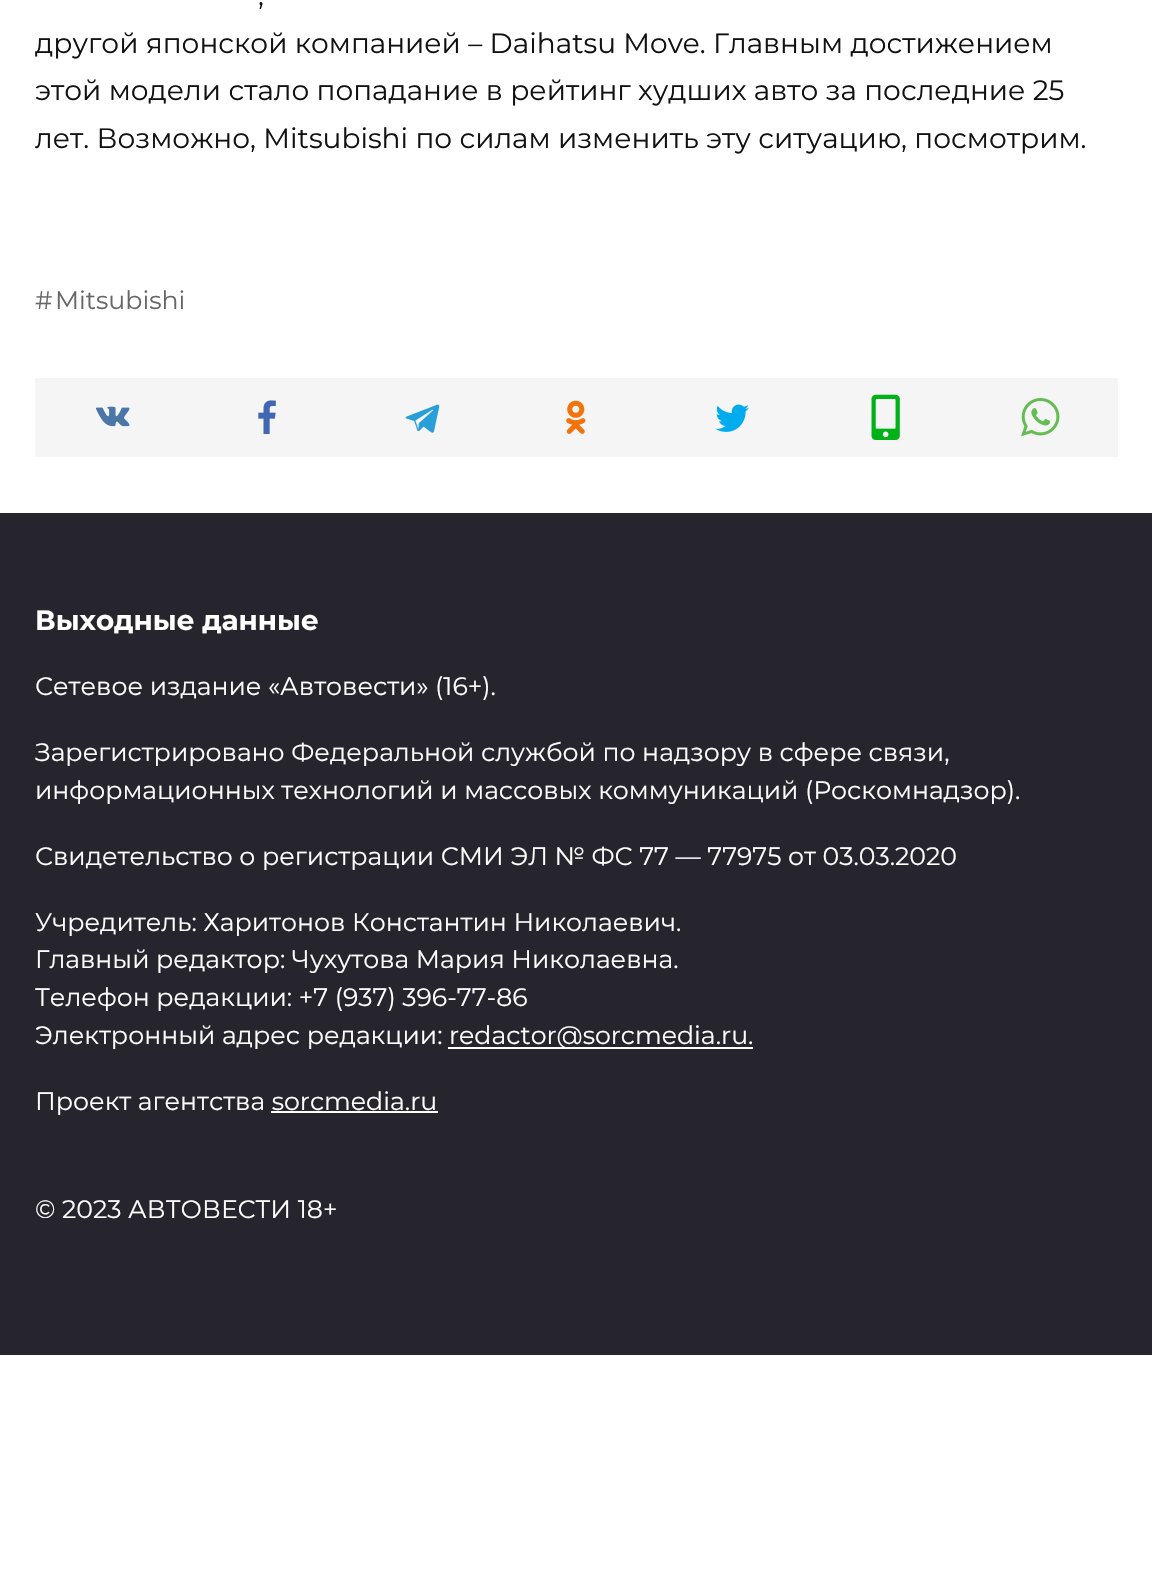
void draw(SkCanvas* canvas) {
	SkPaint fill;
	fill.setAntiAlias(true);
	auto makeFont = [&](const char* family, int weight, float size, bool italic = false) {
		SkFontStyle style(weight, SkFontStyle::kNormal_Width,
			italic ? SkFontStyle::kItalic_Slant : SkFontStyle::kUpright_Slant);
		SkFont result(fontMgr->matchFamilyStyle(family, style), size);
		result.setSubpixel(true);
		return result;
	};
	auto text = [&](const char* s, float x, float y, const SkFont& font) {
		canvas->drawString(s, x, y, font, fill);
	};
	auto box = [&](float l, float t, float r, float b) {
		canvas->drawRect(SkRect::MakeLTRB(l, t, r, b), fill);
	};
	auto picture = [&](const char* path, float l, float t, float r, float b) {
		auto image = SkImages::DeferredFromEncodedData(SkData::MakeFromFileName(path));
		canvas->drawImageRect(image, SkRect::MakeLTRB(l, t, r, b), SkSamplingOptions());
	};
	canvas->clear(0xFFFFFFFF);
	fill.setColor(0xFFF5F5F5);
	box(35, 378, 1118, 457);
	picture("image0.png", 95, 406, 130, 427);
	picture("image1.png", 258, 400, 276, 434);
	picture("image2.png", 405, 404, 440, 433);
	picture("image3.png", 566, 400, 586, 434);
	picture("image4.png", 715, 404, 749, 432);
	picture("image5.png", 871, 394, 900, 440);
	picture("image6.png", 1021, 398, 1060, 437);
	fill.setColor(0xFF26252D);
	box(0, 513, 1152, 1355);
	fill.setColor(0xFFFFFFFF);
	box(448, 1047, 753, 1049);
	box(271, 1111, 438, 1113);
	auto font1 = makeFont("Montserrat", 400, 28);
	fill.setColor(0xFF111111);
	text(",", 258, 5, font1);
	text("другой японской компанией – Daihatsu Move. Главным достижением", 35, 53, font1);
	text("этой модели стало попадание в рейтинг худших авто за последние 25", 35, 100, font1);
	text("лет. Возможно, Mitsubishi по силам изменить эту ситуацию, посмотрим.", 35, 148, font1);
	auto font2 = makeFont("Montserrat", 400, 25.2f);
	fill.setColor(0xFF666666);
	text("#", 35, 309, font2);
	text("Mitsubishi", 55, 309, font2);
	auto font3 = makeFont("Montserrat", 700, 27.75f);
	fill.setColor(0xFFFFFFFF);
	text("Выходные данные", 35, 630, font3);
	text("Сетевое издание «Автовести» (16+).", 35, 695, font2);
	text("Зарегистрировано Федеральной службой по надзору в сфере связи,", 35, 761, font2);
	text("информационных технологий и массовых коммуникаций (Роскомнадзор).", 35, 799, font2);
	text("Свидетельство о регистрации СМИ ЭЛ № ФС 77 — 77975 от 03.03.2020", 35, 865, font2);
	text("Учредитель: Харитонов Константин Николаевич.", 35, 931, font2);
	text("Главный редактор: Чухутова Мария Николаевна.", 35, 968, font2);
	text("Телефон редакции: +7 (937) 396-77-86", 35, 1006, font2);
	text("Электронный адрес редакции:", 35, 1044, font2);
	text("redactor@sorcmedia.ru.", 449, 1044, font2);
	text("Проект агентства sorcmedia.ru", 35, 1110, font2);
	text("© 2023 АВТОВЕСТИ 18+", 35, 1218, font2);
}
